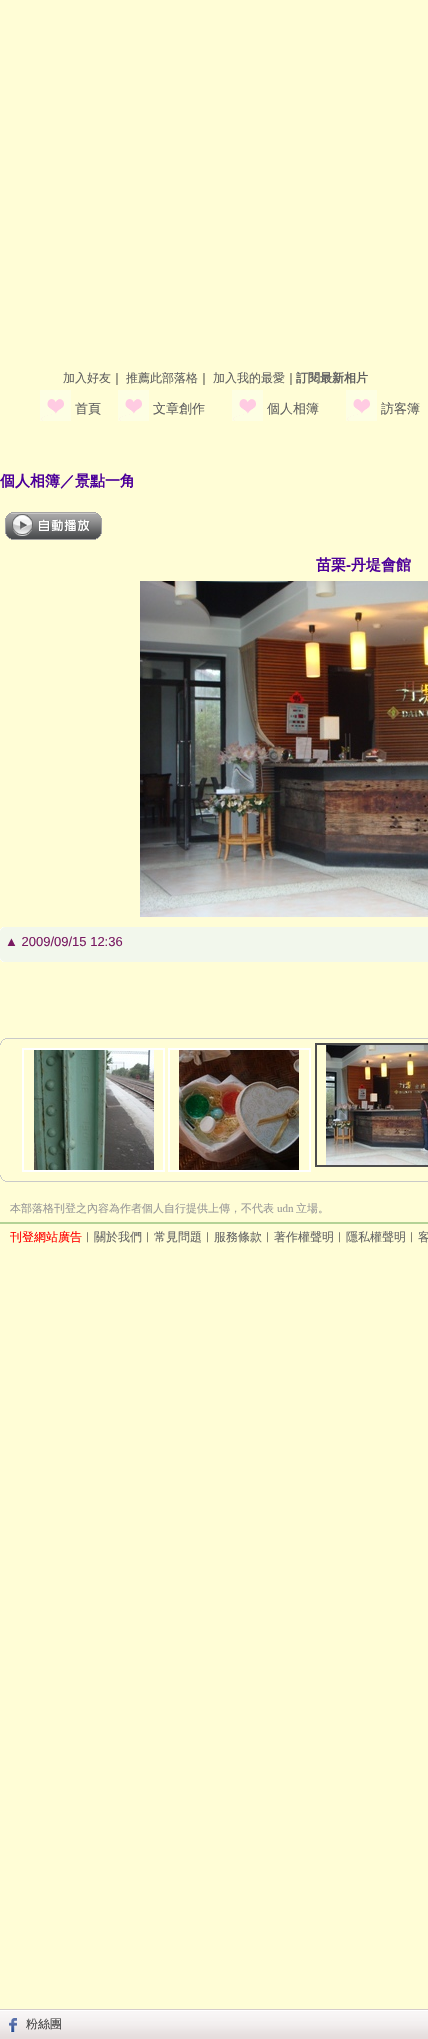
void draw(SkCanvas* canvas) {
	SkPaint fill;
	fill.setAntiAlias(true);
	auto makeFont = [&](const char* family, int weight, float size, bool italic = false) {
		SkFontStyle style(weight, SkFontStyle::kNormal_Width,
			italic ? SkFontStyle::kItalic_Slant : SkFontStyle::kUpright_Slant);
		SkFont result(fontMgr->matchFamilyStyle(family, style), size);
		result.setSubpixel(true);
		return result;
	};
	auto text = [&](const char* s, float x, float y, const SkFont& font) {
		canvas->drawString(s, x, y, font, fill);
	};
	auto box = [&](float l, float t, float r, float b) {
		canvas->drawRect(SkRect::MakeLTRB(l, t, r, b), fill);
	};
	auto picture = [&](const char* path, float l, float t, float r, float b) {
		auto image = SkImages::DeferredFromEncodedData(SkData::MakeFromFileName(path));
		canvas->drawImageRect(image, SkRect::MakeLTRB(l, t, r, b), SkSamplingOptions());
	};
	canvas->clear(0xFFFFFDD6);
	picture("image0.png", 40, 390, 71, 421);
	picture("image0.png", 118, 390, 149, 421);
	picture("image0.png", 232, 390, 263, 421);
	picture("image0.png", 346, 390, 377, 421);
	picture("image1.png", 5, 512, 102, 540);
	picture("image2.png", 140, 581, 428, 917);
	picture("image3.png", 0, 927, 5, 932);
	fill.setColor(0xFFF2F7EC);
	box(5, 927, 428, 932);
	box(0, 932, 428, 957);
	picture("image4.png", 0, 957, 5, 962);
	box(5, 957, 428, 962);
	picture("image5.png", 0, 1038, 428, 1045);
	fill.setStyle(SkPaint::kStroke_Style);
	fill.setStrokeWidth(2);
	fill.setColor(0xFFFFFFFF);
	canvas->drawRect(SkRect::MakeLTRB(23, 1049, 164, 1171), fill);
	picture("image6.png", 34, 1050, 154, 1170);
	canvas->drawRect(SkRect::MakeLTRB(169, 1049, 310, 1171), fill);
	picture("image7.png", 179, 1050, 299, 1170);
	fill.setColor(0xFF4D4D4D);
	canvas->drawRect(SkRect::MakeLTRB(316, 1044, 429, 1166), fill);
	picture("image8.png", 326, 1045, 428, 1165);
	picture("image9.png", 0, 1175, 428, 1182);
	fill.setStyle(SkPaint::kFill_Style);
	fill.setColor(0xFFB4D295);
	box(0, 1222, 428, 1224);
	picture("image10.png", 0, 2009, 428, 2039);
	picture("image11.png", 9, 2018, 17, 2032);
	auto font1 = makeFont("WenQuanYi Zen Hei", 500, 12);
	fill.setColor(0xFF606060);
	text("加入好友", 63, 382, font1);
	fill.setColor(0xFF333333);
	text("｜", 111, 382, font1);
	fill.setColor(0xFF606060);
	text("推薦此部落格", 126, 382, font1);
	fill.setColor(0xFF333333);
	text("｜", 198, 382, font1);
	fill.setColor(0xFF606060);
	text("加入我的最愛", 213, 382, font1);
	fill.setColor(0xFF333333);
	text("｜", 285, 382, font1);
	auto font2 = makeFont("WenQuanYi Zen Hei", 700, 12);
	fill.setColor(0xFF606060);
	text("訂閱最新相片", 296, 382, font2);
	auto font3 = makeFont("WenQuanYi Zen Hei", 500, 13);
	text("首頁", 75, 413, font3);
	text("文章創作", 153, 413, font3);
	text("個人相簿", 267, 413, font3);
	text("訪客簿", 381, 413, font3);
	auto font4 = makeFont("WenQuanYi Zen Hei", 700, 15);
	fill.setColor(0xFF4D0099);
	text("個人相簿／景點一角", 0, 486, font4);
	text("苗栗", 316, 570, font4);
	auto font5 = makeFont("Liberation Sans", 700, 15);
	text("-", 346, 570, font5);
	text("丹堤會館", 351, 570, font4);
	auto font6 = makeFont("Liberation Sans", 400, 13);
	fill.setColor(0xFF7A1A62);
	text("▲ 2009/09/15 12:36", 5, 946, font6);
	auto font7 = makeFont("WenQuanYi Zen Hei", 500, 11);
	fill.setColor(0xFF999999);
	text("本部落格刊登之內容為作者個人自行提供上傳，不代表", 10, 1212, font7);
	auto font8 = makeFont("Liberation Serif", 400, 11);
	text("udn", 277, 1212, font8);
	text("立場。", 296, 1212, font7);
	fill.setColor(0xFFFF0000);
	text("刊登網站廣告", 10, 1241, font1);
	fill.setColor(0xFF333333);
	text("︱", 82, 1241, font1);
	fill.setColor(0xFF666666);
	text("關於我們", 94, 1241, font1);
	fill.setColor(0xFF333333);
	text("︱", 142, 1241, font1);
	fill.setColor(0xFF666666);
	text("常見問題", 154, 1241, font1);
	fill.setColor(0xFF333333);
	text("︱", 202, 1241, font1);
	fill.setColor(0xFF666666);
	text("服務條款", 214, 1241, font1);
	fill.setColor(0xFF333333);
	text("︱", 262, 1241, font1);
	fill.setColor(0xFF666666);
	text("著作權聲明", 274, 1241, font1);
	fill.setColor(0xFF333333);
	text("︱", 334, 1241, font1);
	fill.setColor(0xFF666666);
	text("隱私權聲明", 346, 1241, font1);
	fill.setColor(0xFF333333);
	text("︱", 406, 1241, font1);
	fill.setColor(0xFF666666);
	text("客", 418, 1241, font1);
	fill.setColor(0xFF444444);
	text("粉絲團", 26, 2028, font1);
}
